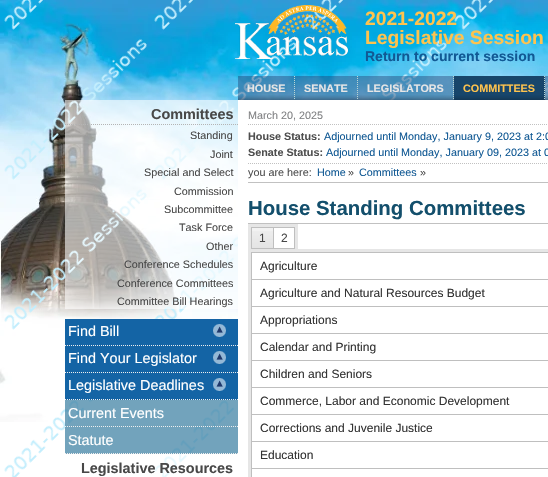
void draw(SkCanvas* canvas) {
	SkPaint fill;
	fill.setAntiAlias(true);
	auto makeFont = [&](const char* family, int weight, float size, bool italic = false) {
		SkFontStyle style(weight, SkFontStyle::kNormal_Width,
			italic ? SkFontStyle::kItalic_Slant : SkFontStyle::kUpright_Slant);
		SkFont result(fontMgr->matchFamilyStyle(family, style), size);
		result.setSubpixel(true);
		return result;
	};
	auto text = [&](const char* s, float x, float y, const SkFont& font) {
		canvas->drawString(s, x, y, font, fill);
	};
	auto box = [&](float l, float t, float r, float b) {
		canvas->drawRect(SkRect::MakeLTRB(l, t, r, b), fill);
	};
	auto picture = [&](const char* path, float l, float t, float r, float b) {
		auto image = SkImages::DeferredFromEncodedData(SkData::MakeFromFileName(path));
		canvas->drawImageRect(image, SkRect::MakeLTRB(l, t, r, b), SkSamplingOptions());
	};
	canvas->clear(0xFFFFFFFF);
	picture("image0.png", 0, 0, 548, 422);
	picture("image1.png", 4, 0, 548, 477);
	picture("image2.png", 235, 5, 348, 59);
	picture("image3.png", 238, 76, 295, 100);
	fill.setStyle(SkPaint::kStroke_Style);
	fill.setStrokeWidth(1);
	fill.setColor(0xFFBBD5D3);
	fill.setPathEffect(SkDashPathEffect::Make({{1, 1}}, 0));
	canvas->drawPath(SkPathBuilder().moveTo(294.5f, 76).lineTo(294.5f, 100).detach(), fill);
	fill.setPathEffect(nullptr);
	picture("image4.png", 295, 76, 358, 100);
	fill.setPathEffect(SkDashPathEffect::Make({{1, 1}}, 0));
	canvas->drawPath(SkPathBuilder().moveTo(357.5f, 76).lineTo(357.5f, 100).detach(), fill);
	fill.setPathEffect(nullptr);
	picture("image5.png", 358, 76, 454, 100);
	fill.setPathEffect(SkDashPathEffect::Make({{1, 1}}, 0));
	canvas->drawPath(SkPathBuilder().moveTo(453.5f, 76).lineTo(453.5f, 100).detach(), fill);
	fill.setPathEffect(nullptr);
	fill.setStyle(SkPaint::kFill_Style);
	fill.setColor(0xFF134F6C);
	box(454, 76, 545, 100);
	picture("image6.png", 454, 76, 545, 100);
	fill.setStyle(SkPaint::kStroke_Style);
	fill.setColor(0xFFBBD5D3);
	fill.setPathEffect(SkDashPathEffect::Make({{1, 1}}, 0));
	canvas->drawPath(SkPathBuilder().moveTo(544.5f, 76).lineTo(544.5f, 100).detach(), fill);
	fill.setPathEffect(nullptr);
	picture("image7.png", 545, 76, 548, 100);
	fill.setStyle(SkPaint::kFill_Style);
	fill.setColor(0x96FFFFFF);
	box(65, 100, 238, 125);
	fill.setStyle(SkPaint::kStroke_Style);
	fill.setColor(0xFFB4B4B4);
	fill.setPathEffect(SkDashPathEffect::Make({{1, 1}}, 0));
	canvas->drawPath(SkPathBuilder().moveTo(65, 124.5f).lineTo(238, 124.5f).detach(), fill);
	fill.setPathEffect(nullptr);
	fill.setStyle(SkPaint::kFill_Style);
	fill.setColor(0x96FFFFFF);
	box(65, 125, 238, 144);
	box(65, 144, 238, 162);
	box(65, 162, 238, 181);
	box(65, 181, 238, 199);
	box(65, 199, 144, 217);
	box(65, 217, 238, 236);
	box(65, 236, 238, 254);
	box(65, 254, 238, 273);
	box(65, 273, 238, 291);
	box(65, 291, 238, 309);
	fill.setColor(0xFF1464A5);
	box(65, 319, 238, 400);
	fill.setStyle(SkPaint::kStroke_Style);
	fill.setColor(0xFFEEEEEE);
	fill.setPathEffect(SkDashPathEffect::Make({{1, 1}}, 0));
	canvas->drawPath(SkPathBuilder().moveTo(65, 345.5f).lineTo(238, 345.5f).detach(), fill);
	fill.setPathEffect(nullptr);
	picture("image8.png", 213, 324, 226, 337);
	fill.setPathEffect(SkDashPathEffect::Make({{1, 1}}, 0));
	canvas->drawPath(SkPathBuilder().moveTo(65, 372.5f).lineTo(238, 372.5f).detach(), fill);
	fill.setPathEffect(nullptr);
	picture("image8.png", 213, 351, 226, 364);
	fill.setPathEffect(SkDashPathEffect::Make({{1, 1}}, 0));
	canvas->drawPath(SkPathBuilder().moveTo(65, 399.5f).lineTo(238, 399.5f).detach(), fill);
	fill.setPathEffect(nullptr);
	picture("image8.png", 213, 378, 226, 391);
	fill.setStyle(SkPaint::kFill_Style);
	fill.setColor(0xBF4384A6);
	box(65, 400, 238, 427);
	fill.setStyle(SkPaint::kStroke_Style);
	fill.setColor(0xFFEEEEEE);
	fill.setPathEffect(SkDashPathEffect::Make({{1, 1}}, 0));
	canvas->drawPath(SkPathBuilder().moveTo(65, 426.5f).lineTo(238, 426.5f).detach(), fill);
	fill.setPathEffect(nullptr);
	fill.setStyle(SkPaint::kFill_Style);
	fill.setColor(0xBF4384A6);
	box(65, 427, 238, 454);
	fill.setStyle(SkPaint::kStroke_Style);
	fill.setColor(0xFFEEEEEE);
	fill.setPathEffect(SkDashPathEffect::Make({{1, 1}}, 0));
	canvas->drawPath(SkPathBuilder().moveTo(65, 453.5f).lineTo(238, 453.5f).detach(), fill);
	fill.setPathEffect(nullptr);
	fill.setStyle(SkPaint::kFill_Style);
	fill.setColor(0x96FFFFFF);
	box(154, 454, 187, 477);
	fill.setColor(0xFFFFFFFF);
	box(238, 100, 548, 477);
	fill.setStyle(SkPaint::kStroke_Style);
	fill.setColor(0xFFC1C1C1);
	fill.setPathEffect(SkDashPathEffect::Make({{1, 1}}, 0));
	canvas->drawPath(SkPathBuilder().moveTo(248, 124.5f).lineTo(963, 124.5f).detach(), fill);
	fill.setPathEffect(nullptr);
	fill.setPathEffect(SkDashPathEffect::Make({{1, 1}}, 0));
	canvas->drawPath(SkPathBuilder().moveTo(248, 163.5f).lineTo(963, 163.5f).detach(), fill);
	fill.setPathEffect(nullptr);
	fill.setStyle(SkPaint::kFill_Style);
	box(248, 182, 548, 183);
	box(248, 223, 548, 224);
	fill.setColor(0xFFE6E6E6);
	box(248, 224, 298, 249);
	fill.setColor(0xFFF2F2F2);
	box(252, 228, 273, 248);
	picture("image9.png", 252, 231, 273, 248);
	fill.setColor(0xFFBFBFBF);
	box(251, 227, 273, 228);
	box(251, 248, 273, 249);
	box(251, 227, 252, 249);
	fill.setColor(0xFFFFFFFF);
	canvas->drawRect(SkRect::MakeLTRB(273.5f, 227.5f, 294.5f, 248.5f), fill);
	fill.setStyle(SkPaint::kStroke_Style);
	fill.setColor(0xFFBFBFBF);
	canvas->drawRect(SkRect::MakeLTRB(273.5f, 227.5f, 294.5f, 248.5f), fill);
	fill.setStyle(SkPaint::kFill_Style);
	fill.setColor(0xFFE6E6E6);
	box(248, 249, 548, 477);
	fill.setColor(0xFFBFBFBF);
	box(251, 252, 548, 253);
	box(251, 252, 252, 477);
	fill.setColor(0xFFFFFFFF);
	box(252, 253, 548, 279);
	fill.setColor(0xFFBFBFBF);
	box(252, 279, 548, 280);
	fill.setColor(0xFFFFFFFF);
	box(252, 280, 548, 306);
	fill.setColor(0xFFBFBFBF);
	box(252, 306, 548, 307);
	fill.setColor(0xFFFFFFFF);
	box(252, 307, 548, 333);
	fill.setColor(0xFFBFBFBF);
	box(252, 333, 548, 334);
	fill.setColor(0xFFFFFFFF);
	box(252, 334, 548, 360);
	fill.setColor(0xFFBFBFBF);
	box(252, 360, 548, 361);
	fill.setColor(0xFFFFFFFF);
	box(252, 361, 548, 387);
	fill.setColor(0xFFBFBFBF);
	box(252, 387, 548, 388);
	fill.setColor(0xFFFFFFFF);
	box(252, 388, 548, 414);
	fill.setColor(0xFFBFBFBF);
	box(252, 414, 548, 415);
	fill.setColor(0xFFFFFFFF);
	box(252, 415, 548, 441);
	fill.setColor(0xFFBFBFBF);
	box(252, 441, 548, 442);
	fill.setColor(0xFFFFFFFF);
	box(252, 442, 548, 468);
	fill.setColor(0xFFBFBFBF);
	box(252, 468, 548, 469);
	fill.setColor(0xFFFFFFFF);
	box(252, 469, 548, 477);
	auto font1 = makeFont("Liberation Sans", 700, 19.25f);
	fill.setColor(0xFFFEC34E);
	text("2021-2022", 365, 25, font1);
	text("Legislative Session", 365, 44, font1);
	auto font2 = makeFont("Liberation Sans", 700, 14);
	fill.setColor(0xFF115994);
	text("Return to current session", 365, 61, font2);
	auto font3 = makeFont("Liberation Sans", 700, 10.8f);
	fill.setColor(0xFFE6E6E6);
	text("HOUSE", 247, 92, font3);
	text("SENATE", 304, 92, font3);
	text("LEGISLATORS", 367, 92, font3);
	fill.setColor(0xFFFEC34E);
	text("COMMITTEES", 463, 92, font3);
	auto font4 = makeFont("Liberation Sans", 700, 14.4f);
	fill.setColor(0xFF484848);
	text("Committees", 151, 119, font4);
	auto font5 = makeFont("Liberation Sans", 400, 10.8f);
	text("Standing", 190, 139, font5);
	text("Joint", 210, 158, font5);
	text("Special and Select", 144, 176, font5);
	text("Commission", 174, 195, font5);
	text("Subcommittee", 164, 213, font5);
	text("Task Force", 179, 231, font5);
	text("Other", 206, 250, font5);
	text("Conference Schedules", 124, 268, font5);
	text("Conference Committees", 117, 287, font5);
	text("Committee Bill Hearings", 117, 305, font5);
	auto font6 = makeFont("Liberation Sans", 400, 14.4f);
	fill.setColor(0xFFFFFFFF);
	text("Find Bill", 68, 336, font6);
	text("Find Your Legislator", 68, 363, font6);
	text("Legislative Deadlines", 68, 390, font6);
	text("Current Events", 68, 418, font6);
	text("Statute", 68, 445, font6);
	fill.setColor(0xFF484848);
	text("Legislative Resources", 81, 473, font4);
	fill.setColor(0xFF808183);
	text("March 20, 2025", 248, 119, font5);
	fill.setColor(0xFF4E4E4E);
	text("House Status:", 248, 140, font3);
	fill.setColor(0xFF115994);
	text("Adjourned until Monday, January 9, 2023 at 2:0", 324, 140, font5);
	fill.setColor(0xFF4E4E4E);
	text("Senate Status:", 248, 156, font3);
	fill.setColor(0xFF115994);
	text("Adjourned until Monday, January 09, 2023 at 0", 326, 156, font5);
	fill.setColor(0xFF4E4E4E);
	text("you are here:", 248, 176, font5);
	fill.setColor(0xFF115994);
	text("Home", 317, 176, font5);
	fill.setColor(0xFF4E4E4E);
	text("»", 348, 176, font5);
	fill.setColor(0xFF115994);
	text("Committees", 359, 176, font5);
	fill.setColor(0xFF4E4E4E);
	text("»", 420, 176, font5);
	auto font7 = makeFont("Liberation Sans", 700, 20.4f);
	fill.setColor(0xFF134F6C);
	text("House Standing Committees", 248, 215, font7);
	auto font8 = makeFont("Liberation Sans", 400, 12);
	fill.setColor(0xFF484848);
	text("1", 259, 242, font8);
	text("2", 281, 242, font8);
	fill.setColor(0xFF333333);
	text("Agriculture", 260, 270, font8);
	text("Agriculture and Natural Resources Budget", 260, 297, font8);
	text("Appropriations", 260, 324, font8);
	text("Calendar and Printing", 260, 351, font8);
	text("Children and Seniors", 260, 378, font8);
	text("Commerce, Labor and Economic Development", 260, 405, font8);
	text("Corrections and Juvenile Justice", 260, 432, font8);
	text("Education", 260, 459, font8);
}
